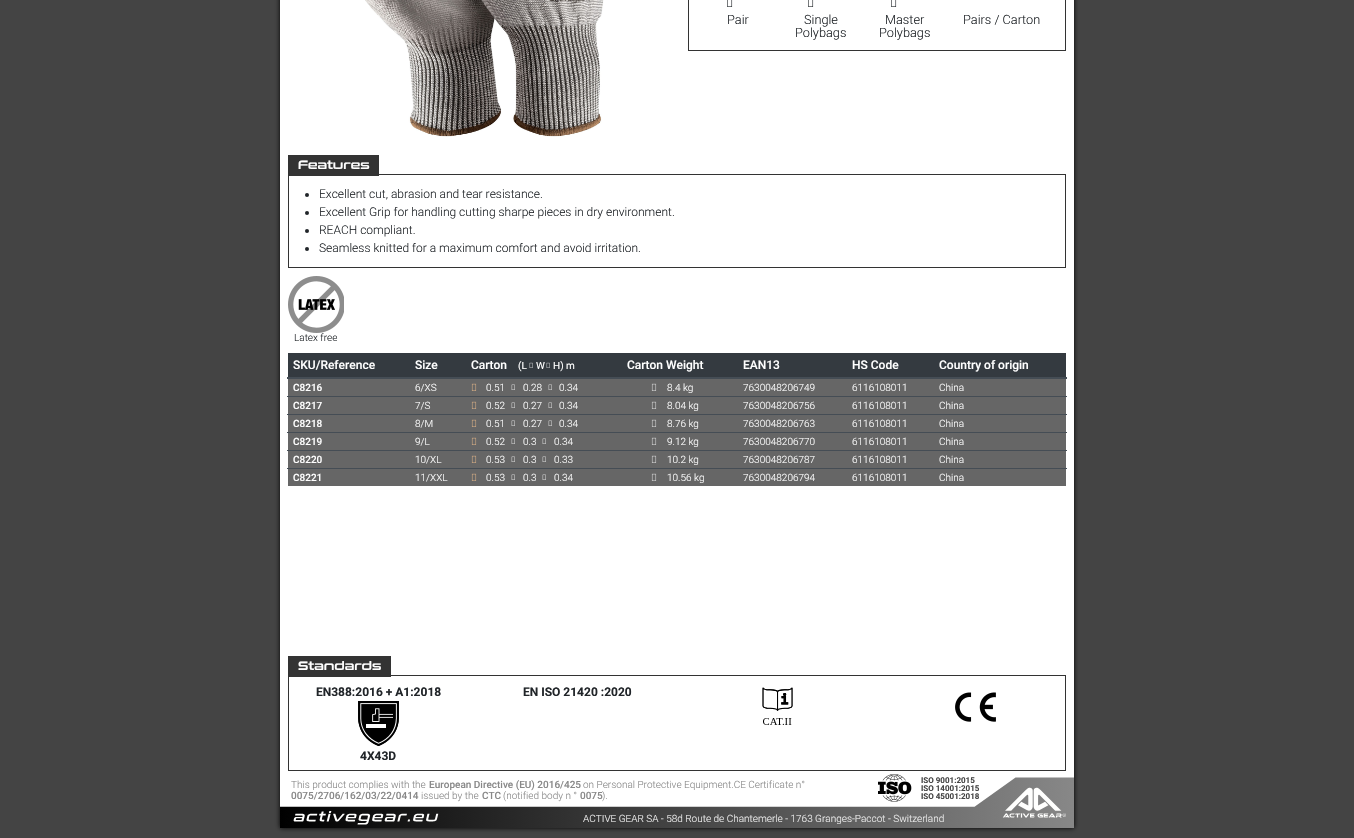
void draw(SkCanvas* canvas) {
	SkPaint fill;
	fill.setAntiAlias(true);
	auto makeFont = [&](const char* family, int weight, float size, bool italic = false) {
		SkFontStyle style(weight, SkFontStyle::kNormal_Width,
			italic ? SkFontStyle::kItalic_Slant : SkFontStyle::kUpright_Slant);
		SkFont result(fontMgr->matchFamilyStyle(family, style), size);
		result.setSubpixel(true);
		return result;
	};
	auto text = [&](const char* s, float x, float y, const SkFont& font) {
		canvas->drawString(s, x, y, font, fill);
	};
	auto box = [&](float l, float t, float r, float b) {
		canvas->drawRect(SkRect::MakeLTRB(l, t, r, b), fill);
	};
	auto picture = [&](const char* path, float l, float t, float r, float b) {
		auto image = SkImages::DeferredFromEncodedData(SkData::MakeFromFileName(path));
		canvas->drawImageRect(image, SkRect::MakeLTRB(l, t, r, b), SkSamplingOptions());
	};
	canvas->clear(0xFF444444);
	fill.setColor(0xFF000000);
	fill.setMaskFilter(SkMaskFilter::MakeBlur(kNormal_SkBlurStyle, 2.5f));
	canvas->drawRect(SkRect::MakeLTRB(280, -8, 1074, 828), fill);
	fill.setMaskFilter(nullptr);
	fill.setColor(0xFFFFFFFF);
	box(280, 0, 1074, 807);
	picture("image0.png", 280, 777, 1074, 828);
	picture("image1.png", 365, 0, 604, 137);
	fill.setStyle(SkPaint::kStroke_Style);
	fill.setStrokeWidth(1);
	fill.setColor(0xFF333333);
	canvas->drawRect(SkRect::MakeLTRB(688.5f, -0.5f, 1065.5f, 50.5f), fill);
	picture("image2.png", 727, 0, 733, 7);
	picture("image2.png", 808, 0, 814, 7);
	picture("image2.png", 891, 0, 897, 7);
	canvas->drawRect(SkRect::MakeLTRB(288.5f, 174.5f, 1065.5f, 267.5f), fill);
	fill.setStyle(SkPaint::kFill_Style);
	box(288, 155, 379, 176);
	fill.setColor(0xFF212529);
	canvas->drawCircle(307, 195, 2, fill);
	canvas->drawCircle(307, 213, 2, fill);
	canvas->drawCircle(307, 231, 2, fill);
	canvas->drawCircle(307, 249, 2, fill);
	picture("image3.png", 288, 276, 344, 333);
	fill.setColor(0xFF343A40);
	box(288, 353, 1066, 377);
	picture("image4.png", 529, 362, 533, 368);
	picture("image4.png", 546, 362, 550, 368);
	fill.setColor(0xFF454D55);
	box(287, 377, 1067, 379);
	fill.setColor(0xFF666666);
	box(288, 379, 1066, 396);
	picture("image5.png", 471, 383, 477, 391);
	picture("image6.png", 511, 384, 515, 390);
	picture("image6.png", 548, 384, 552, 390);
	picture("image7.png", 651, 383, 657, 391);
	box(288, 397, 1066, 414);
	picture("image5.png", 471, 401, 477, 409);
	picture("image6.png", 511, 402, 515, 408);
	picture("image6.png", 548, 402, 552, 408);
	picture("image7.png", 651, 401, 657, 409);
	fill.setColor(0xFF454D55);
	box(287, 396, 1067, 397);
	fill.setColor(0xFF666666);
	box(288, 415, 1066, 432);
	picture("image5.png", 471, 419, 477, 427);
	picture("image6.png", 511, 420, 515, 426);
	picture("image6.png", 548, 420, 552, 426);
	picture("image7.png", 651, 419, 657, 427);
	fill.setColor(0xFF454D55);
	box(287, 414, 1067, 415);
	fill.setColor(0xFF666666);
	box(288, 433, 1066, 450);
	picture("image5.png", 471, 437, 477, 445);
	picture("image6.png", 511, 438, 515, 444);
	picture("image6.png", 542, 438, 546, 444);
	picture("image7.png", 651, 437, 657, 445);
	fill.setColor(0xFF454D55);
	box(287, 432, 1067, 433);
	fill.setColor(0xFF666666);
	box(288, 451, 1066, 468);
	picture("image5.png", 471, 455, 477, 463);
	picture("image6.png", 511, 456, 515, 462);
	picture("image6.png", 542, 456, 546, 462);
	picture("image7.png", 651, 455, 657, 463);
	fill.setColor(0xFF454D55);
	box(287, 450, 1067, 451);
	fill.setColor(0xFF666666);
	box(288, 469, 1066, 486);
	picture("image5.png", 471, 473, 477, 481);
	picture("image6.png", 511, 474, 515, 480);
	picture("image6.png", 542, 474, 546, 480);
	picture("image7.png", 651, 473, 657, 481);
	fill.setColor(0xFF454D55);
	box(287, 468, 1067, 469);
	fill.setStyle(SkPaint::kStroke_Style);
	fill.setColor(0xFF333333);
	canvas->drawRect(SkRect::MakeLTRB(288.5f, 675.5f, 1065.5f, 770.5f), fill);
	fill.setStyle(SkPaint::kFill_Style);
	box(288, 656, 391, 677);
	picture("image8.png", 358, 701, 399, 746);
	picture("image9.png", 762, 687, 793, 725);
	picture("image10.png", 955, 692, 996, 722);
	picture("image11.png", 878, 774, 912, 802);
	auto font1 = makeFont("Roboto", 300, 12.75f);
	fill.setColor(0xFF212529);
	text("Pair", 727, 24, font1);
	text("Single", 804, 24, font1);
	text("Polybags", 795, 37, font1);
	text("Master", 885, 24, font1);
	text("Polybags", 879, 37, font1);
	text("Pairs / Carton", 963, 24, font1);
	auto font2 = makeFont("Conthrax", 400, 12);
	fill.setColor(0xFFFFFFFF);
	text("Features", 298, 169, font2);
	auto font3 = makeFont("Roboto", 300, 12);
	fill.setColor(0xFF212529);
	text("Excellent cut, abrasion and tear resistance.", 319, 198, font3);
	text("Excellent Grip for handling cutting sharpe pieces in dry environment.", 319, 216, font3);
	text("REACH compliant.", 319, 234, font3);
	text("Seamless knitted for a maximum comfort and avoid irritation.", 319, 252, font3);
	auto font4 = makeFont("Roboto", 300, 10);
	text("Latex free", 294, 341, font4);
	auto font5 = makeFont("Roboto", 500, 12);
	fill.setColor(0xFFFFFFFF);
	text("SKU/Reference", 293, 369, font5);
	text("Size", 415, 369, font5);
	text("Carton", 471, 369, font5);
	auto font6 = makeFont("Roboto", 400, 10);
	text("(L", 518, 369, font6);
	text("W", 536, 369, font6);
	text("H) m", 553, 369, font6);
	text("Carton Weight", 627, 369, font5);
	text("EAN13", 743, 369, font5);
	text("HS Code", 852, 369, font5);
	text("Country of origin", 939, 369, font5);
	auto font7 = makeFont("Roboto", 500, 10);
	text("C8216", 293, 391, font7);
	text("6/XS", 415, 391, font4);
	text("0.51", 486, 391, font4);
	text("0.28", 523, 391, font4);
	text("0.34", 559, 391, font4);
	text("8.4 kg", 667, 391, font4);
	text("7630048206749", 743, 391, font4);
	text("6116108011", 852, 391, font4);
	text("China", 939, 391, font4);
	text("C8217", 293, 409, font7);
	text("7/S", 415, 409, font4);
	text("0.52", 486, 409, font4);
	text("0.27", 523, 409, font4);
	text("0.34", 559, 409, font4);
	text("8.04 kg", 667, 409, font4);
	text("7630048206756", 743, 409, font4);
	text("6116108011", 852, 409, font4);
	text("China", 939, 409, font4);
	text("C8218", 293, 427, font7);
	text("8/M", 415, 427, font4);
	text("0.51", 486, 427, font4);
	text("0.27", 523, 427, font4);
	text("0.34", 559, 427, font4);
	text("8.76 kg", 667, 427, font4);
	text("7630048206763", 743, 427, font4);
	text("6116108011", 852, 427, font4);
	text("China", 939, 427, font4);
	text("C8219", 293, 445, font7);
	text("9/L", 415, 445, font4);
	text("0.52", 486, 445, font4);
	text("0.3", 523, 445, font4);
	text("0.34", 554, 445, font4);
	text("9.12 kg", 667, 445, font4);
	text("7630048206770", 743, 445, font4);
	text("6116108011", 852, 445, font4);
	text("China", 939, 445, font4);
	text("C8220", 293, 463, font7);
	text("10/XL", 415, 463, font4);
	text("0.53", 486, 463, font4);
	text("0.3", 523, 463, font4);
	text("0.33", 554, 463, font4);
	text("10.2 kg", 667, 463, font4);
	text("7630048206787", 743, 463, font4);
	text("6116108011", 852, 463, font4);
	text("China", 939, 463, font4);
	text("C8221", 293, 481, font7);
	text("11/XXL", 415, 481, font4);
	text("0.53", 486, 481, font4);
	text("0.3", 523, 481, font4);
	text("0.34", 554, 481, font4);
	text("10.56 kg", 667, 481, font4);
	text("7630048206794", 743, 481, font4);
	text("6116108011", 852, 481, font4);
	text("China", 939, 481, font4);
	text("Standards", 298, 670, font2);
	auto font8 = makeFont("Roboto", 700, 12);
	fill.setColor(0xFF212529);
	text("EN388:2016 + A1:2018", 316, 696, font8);
	text("4X43D", 360, 760, font8);
	text("EN ISO 21420 :2020", 523, 696, font8);
	fill.setColor(0xFF888888);
	text("This product complies with the", 291, 788, font4);
	text("European Directive (EU) 2016/425", 429, 788, font7);
	text("on Personal Protective Equipment.CE Certificate n°", 583, 788, font4);
	text("0075/2706/162/03/22/0414", 291, 799, font7);
	text("issued by the", 421, 799, font4);
	text("CTC", 482, 799, font7);
	text("(notified body n °", 503, 799, font4);
	text("0075", 580, 799, font7);
	text(").", 602, 799, font4);
	auto font9 = makeFont("Roboto", 700, 8);
	fill.setColor(0xFF444444);
	text("ISO 9001:2015", 921, 783, font9);
	text("ISO 14001:2015", 921, 791, font9);
	text("ISO 45001:2018", 921, 799, font9);
	fill.setColor(0xFFEEEEEE);
	text("ACTIVE GEAR SA - 58d Route de Chantemerle - 1763 Granges-Paccot - Switzerland", 583, 822, font4);
}
